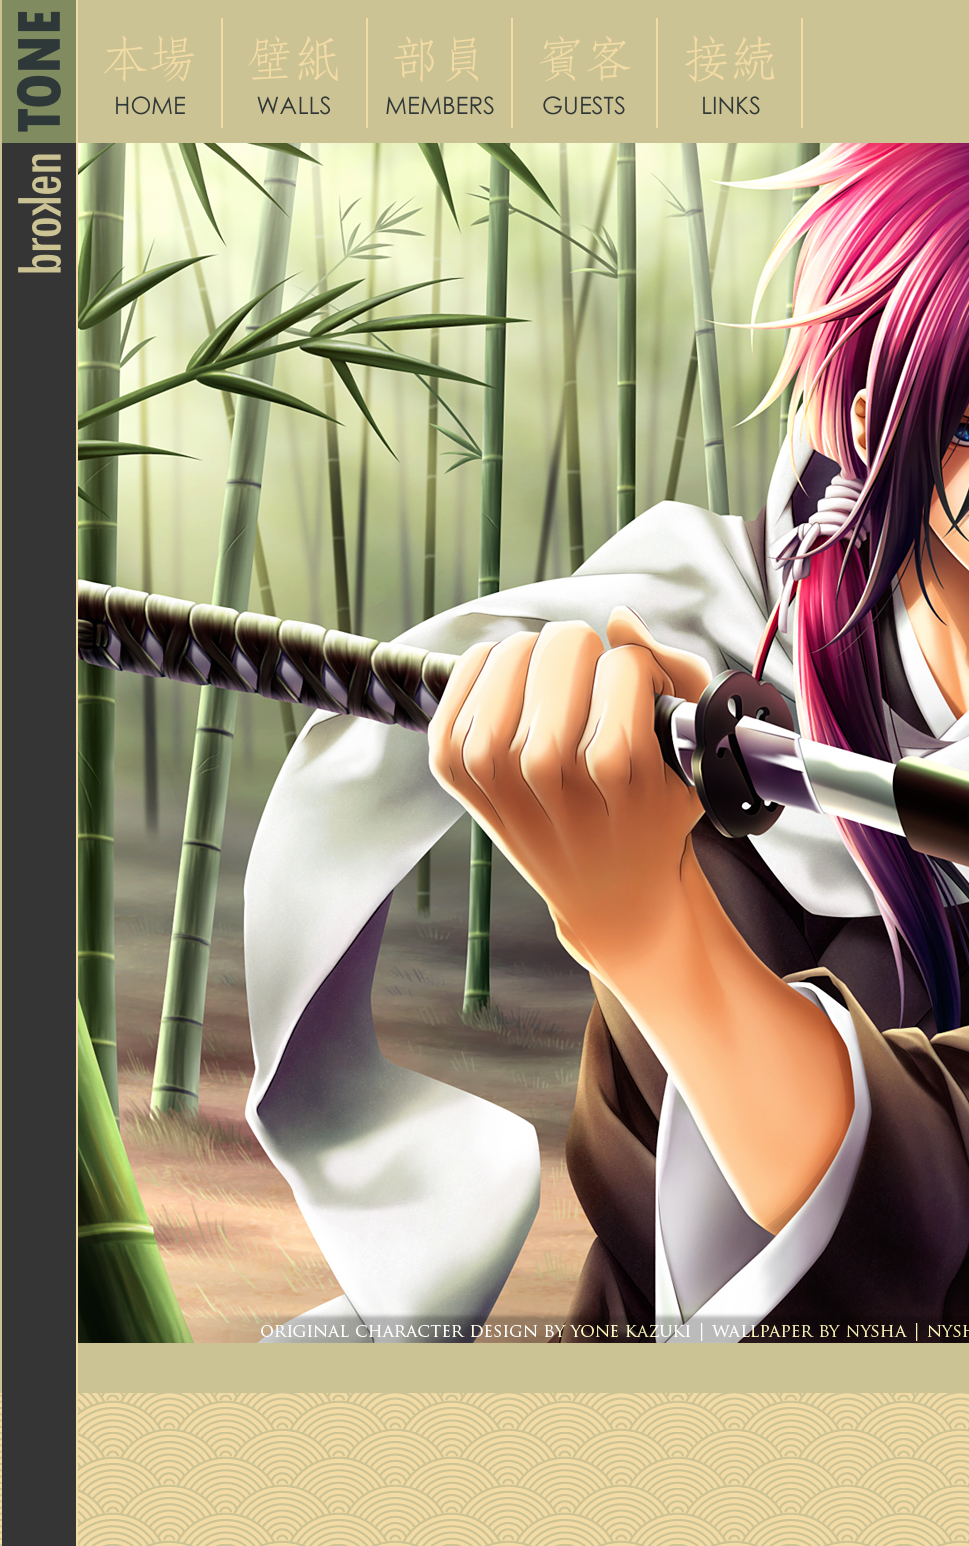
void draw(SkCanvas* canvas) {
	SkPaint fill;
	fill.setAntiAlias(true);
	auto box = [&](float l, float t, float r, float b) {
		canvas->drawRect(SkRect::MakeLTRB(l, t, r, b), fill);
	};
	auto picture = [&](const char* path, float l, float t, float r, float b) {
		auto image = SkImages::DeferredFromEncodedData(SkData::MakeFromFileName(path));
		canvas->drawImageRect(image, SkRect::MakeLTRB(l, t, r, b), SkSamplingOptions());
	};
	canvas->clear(0xFFFFFFFF);
	picture("image0.png", 0, 1393, 969, 1546);
	fill.setColor(0xFFCCC394);
	box(0, 0, 969, 1393);
	fill.setColor(0xFFF2DBA5);
	box(76, 0, 78, 1546);
	fill.setColor(0xFF808C5F);
	box(2, 0, 76, 143);
	fill.setColor(0xFF353535);
	box(2, 143, 76, 1546);
	picture("image1.png", 16, 11, 62, 273);
	picture("image2.png", 104, 18, 803, 128);
	picture("image3.png", 78, 143, 969, 1343);
}
